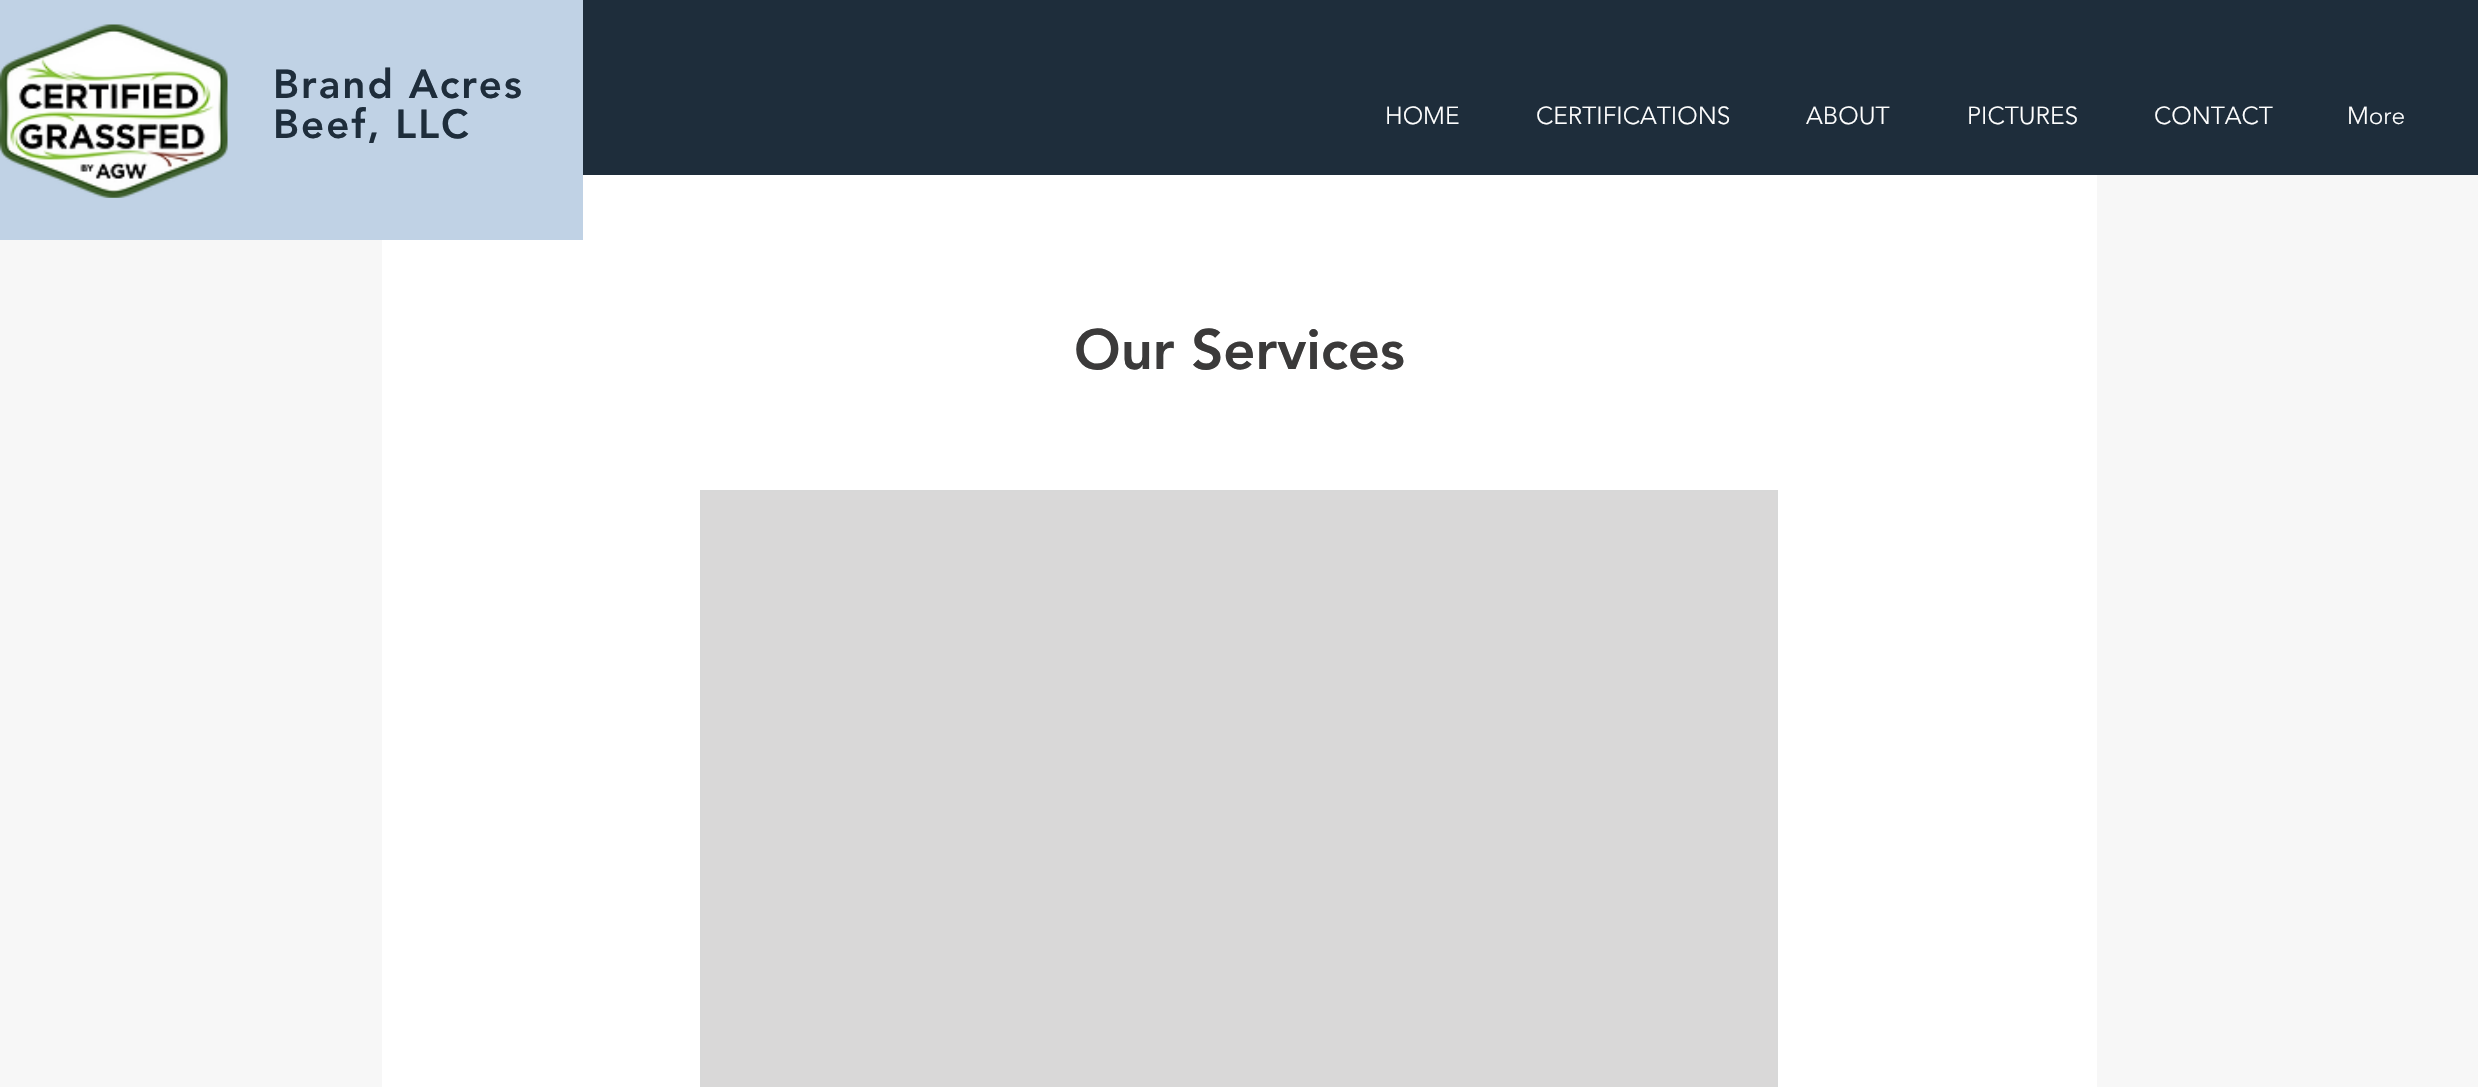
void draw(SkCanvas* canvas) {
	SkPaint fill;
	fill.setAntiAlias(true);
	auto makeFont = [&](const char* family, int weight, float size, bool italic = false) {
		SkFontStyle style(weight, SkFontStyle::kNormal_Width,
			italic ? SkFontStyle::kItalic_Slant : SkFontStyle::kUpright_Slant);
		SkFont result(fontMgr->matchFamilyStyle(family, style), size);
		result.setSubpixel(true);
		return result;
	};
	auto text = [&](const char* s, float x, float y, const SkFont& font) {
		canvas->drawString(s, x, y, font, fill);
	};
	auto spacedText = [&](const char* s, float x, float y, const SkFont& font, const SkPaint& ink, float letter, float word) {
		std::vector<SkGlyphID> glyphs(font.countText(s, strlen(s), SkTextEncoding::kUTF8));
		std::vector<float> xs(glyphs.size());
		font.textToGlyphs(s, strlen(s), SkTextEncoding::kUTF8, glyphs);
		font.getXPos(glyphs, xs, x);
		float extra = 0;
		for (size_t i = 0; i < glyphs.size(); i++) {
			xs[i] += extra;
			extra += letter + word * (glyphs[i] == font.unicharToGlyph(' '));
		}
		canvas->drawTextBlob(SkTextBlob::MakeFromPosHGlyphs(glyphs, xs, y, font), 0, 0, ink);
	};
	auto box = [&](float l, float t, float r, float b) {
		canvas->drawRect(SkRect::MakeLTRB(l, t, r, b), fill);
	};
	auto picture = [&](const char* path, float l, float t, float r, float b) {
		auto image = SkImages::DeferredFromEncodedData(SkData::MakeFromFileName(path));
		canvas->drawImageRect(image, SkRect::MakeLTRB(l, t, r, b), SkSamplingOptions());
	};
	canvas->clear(0xFFF7F7F7);
	fill.setColor(0xFFFFFFFF);
	box(382, 175, 2097, 1087);
	fill.setColor(0xFFC0D2E5);
	box(0, 0, 583, 240);
	picture("image0.png", 0, 24, 228, 198);
	fill.setColor(0xFF1E2D3B);
	box(583, 0, 2478, 175);
	fill.setStyle(SkPaint::kStroke_Style);
	fill.setStrokeWidth(2);
	fill.setColor(0xFFD8D8D8);
	canvas->drawRect(SkRect::MakeLTRB(701, 491, 1777, 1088), fill);
	fill.setStyle(SkPaint::kFill_Style);
	fill.setColor(0xFFD9D8D8);
	box(702, 492, 1776, 1087);
	auto font1 = makeFont("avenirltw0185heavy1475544", 900, 40.25f);
	fill.setColor(0xFF1E2D3B);
	spacedText("Brand Acres", 273, 98, font1, fill, 2, 0);
	spacedText("Beef, LLC", 273, 138, font1, fill, 2, 0);
	auto font2 = makeFont("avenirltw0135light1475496", 300, 24.5f);
	fill.setColor(0xFFFFFFFF);
	text("HOME", 1385, 124, font2);
	text("CERTIFICATIONS", 1536, 124, font2);
	text("ABOUT", 1806, 124, font2);
	text("PICTURES", 1967, 124, font2);
	text("CONTACT", 2154, 124, font2);
	text("More", 2347, 124, font2);
	auto font3 = makeFont("avenirltw0185heavy1475544", 900, 56);
	fill.setColor(0xFF3B3A3A);
	text("Our Services", 1074, 369, font3);
}
